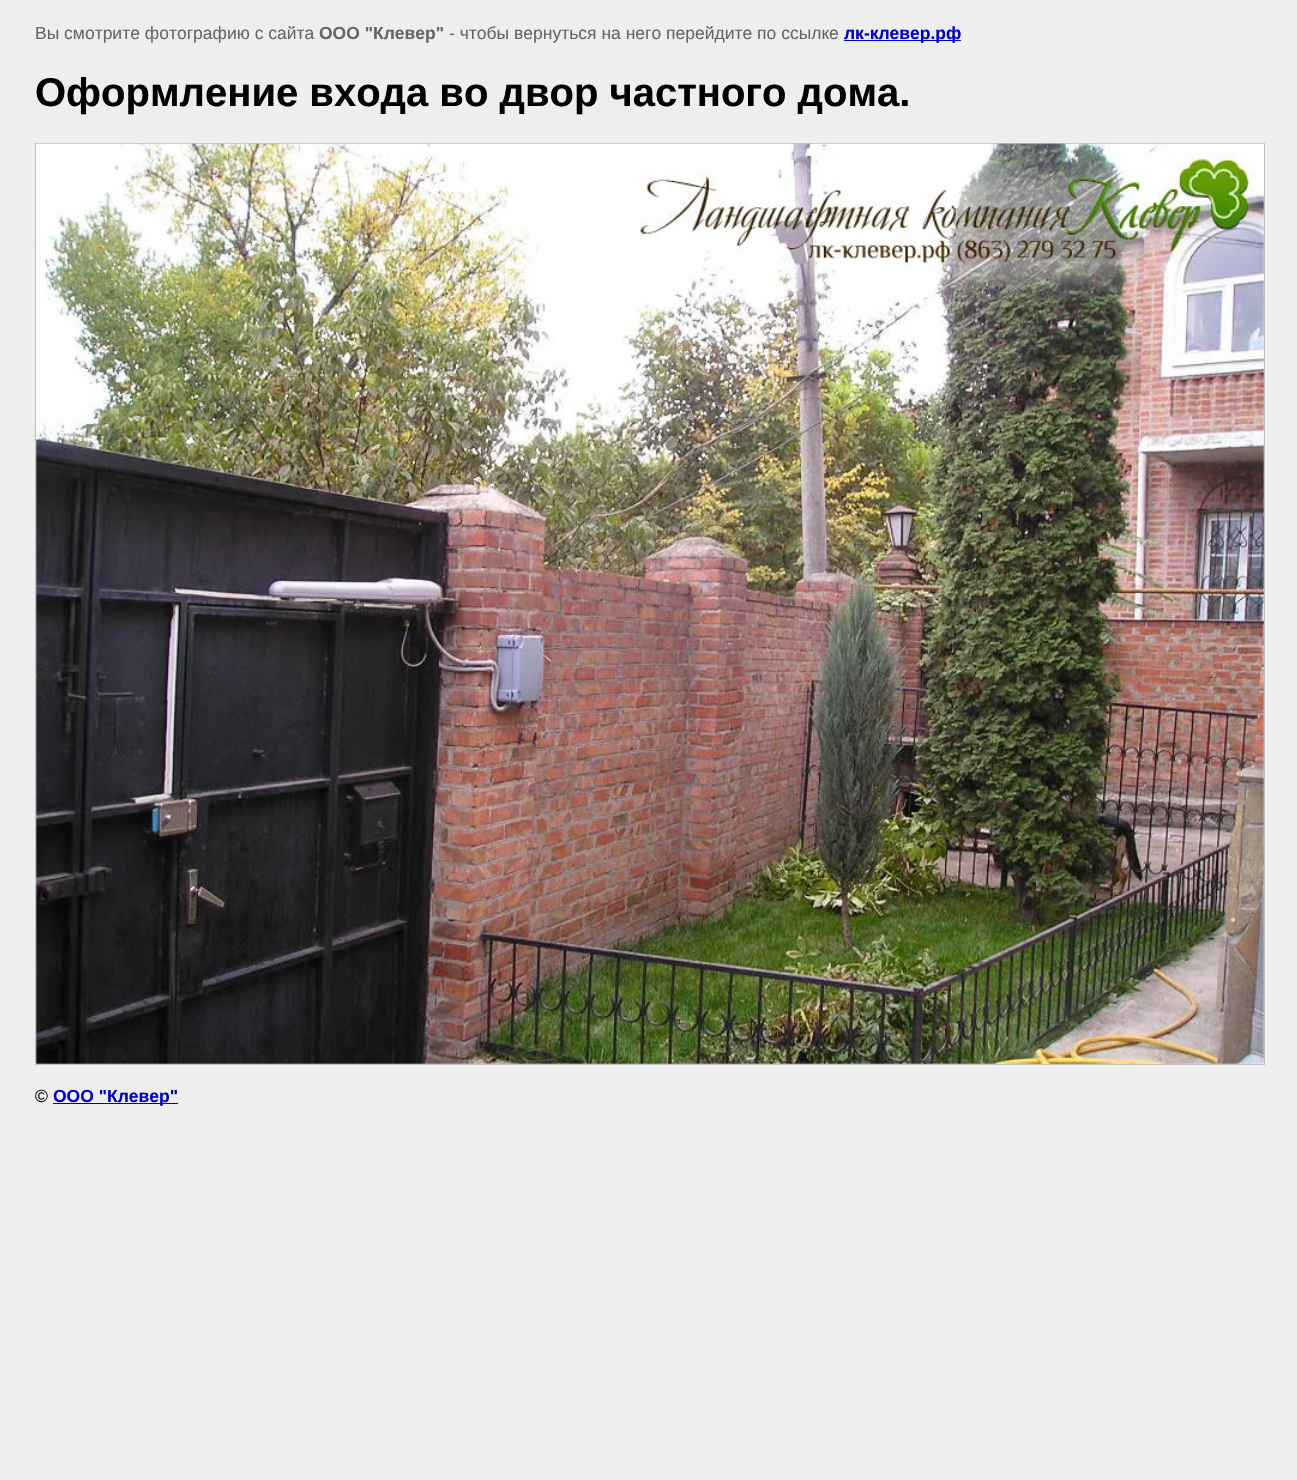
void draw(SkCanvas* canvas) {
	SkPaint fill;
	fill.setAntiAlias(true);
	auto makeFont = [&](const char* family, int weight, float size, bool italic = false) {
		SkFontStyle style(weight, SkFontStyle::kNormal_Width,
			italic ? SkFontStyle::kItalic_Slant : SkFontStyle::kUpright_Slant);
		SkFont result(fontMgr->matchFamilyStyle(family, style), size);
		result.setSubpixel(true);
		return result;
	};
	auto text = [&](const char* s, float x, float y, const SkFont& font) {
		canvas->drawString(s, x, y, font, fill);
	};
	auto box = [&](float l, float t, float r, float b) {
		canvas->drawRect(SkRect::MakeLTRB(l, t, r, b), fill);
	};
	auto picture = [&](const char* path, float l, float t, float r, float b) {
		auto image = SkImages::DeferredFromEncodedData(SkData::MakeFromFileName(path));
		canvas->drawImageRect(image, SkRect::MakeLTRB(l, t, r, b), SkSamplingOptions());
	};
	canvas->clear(0xFFEEEEEE);
	fill.setColor(0xFF0000CC);
	box(844, 40, 961, 41);
	fill.setStyle(SkPaint::kStroke_Style);
	fill.setStrokeWidth(1);
	fill.setColor(0xFFC0C0C0);
	canvas->drawRect(SkRect::MakeLTRB(35.5f, 143.5f, 1264.5f, 1064.5f), fill);
	picture("image0.png", 36, 143, 1264, 1064);
	fill.setStyle(SkPaint::kFill_Style);
	fill.setColor(0xFF0000CC);
	box(53, 1103, 178, 1104);
	auto font1 = makeFont("Liberation Sans", 400, 17.5f);
	fill.setColor(0xFF666666);
	text("Вы смотрите фотографию с сайта", 35, 39, font1);
	auto font2 = makeFont("Liberation Sans", 700, 17.5f);
	text("ООО \"Клевер\"", 319, 39, font2);
	text("- чтобы вернуться на него перейдите по ссылке", 449, 39, font1);
	fill.setColor(0xFF0000CC);
	text("лк-клевер.рф", 844, 39, font2);
	auto font3 = makeFont("Liberation Sans", 700, 40);
	fill.setColor(0xFF000000);
	text("Оформление входа во двор частного дома.", 35, 106, font3);
	text("©", 35, 1102, font1);
	fill.setColor(0xFF0000CC);
	text("ООО \"Клевер\"", 53, 1102, font2);
}
